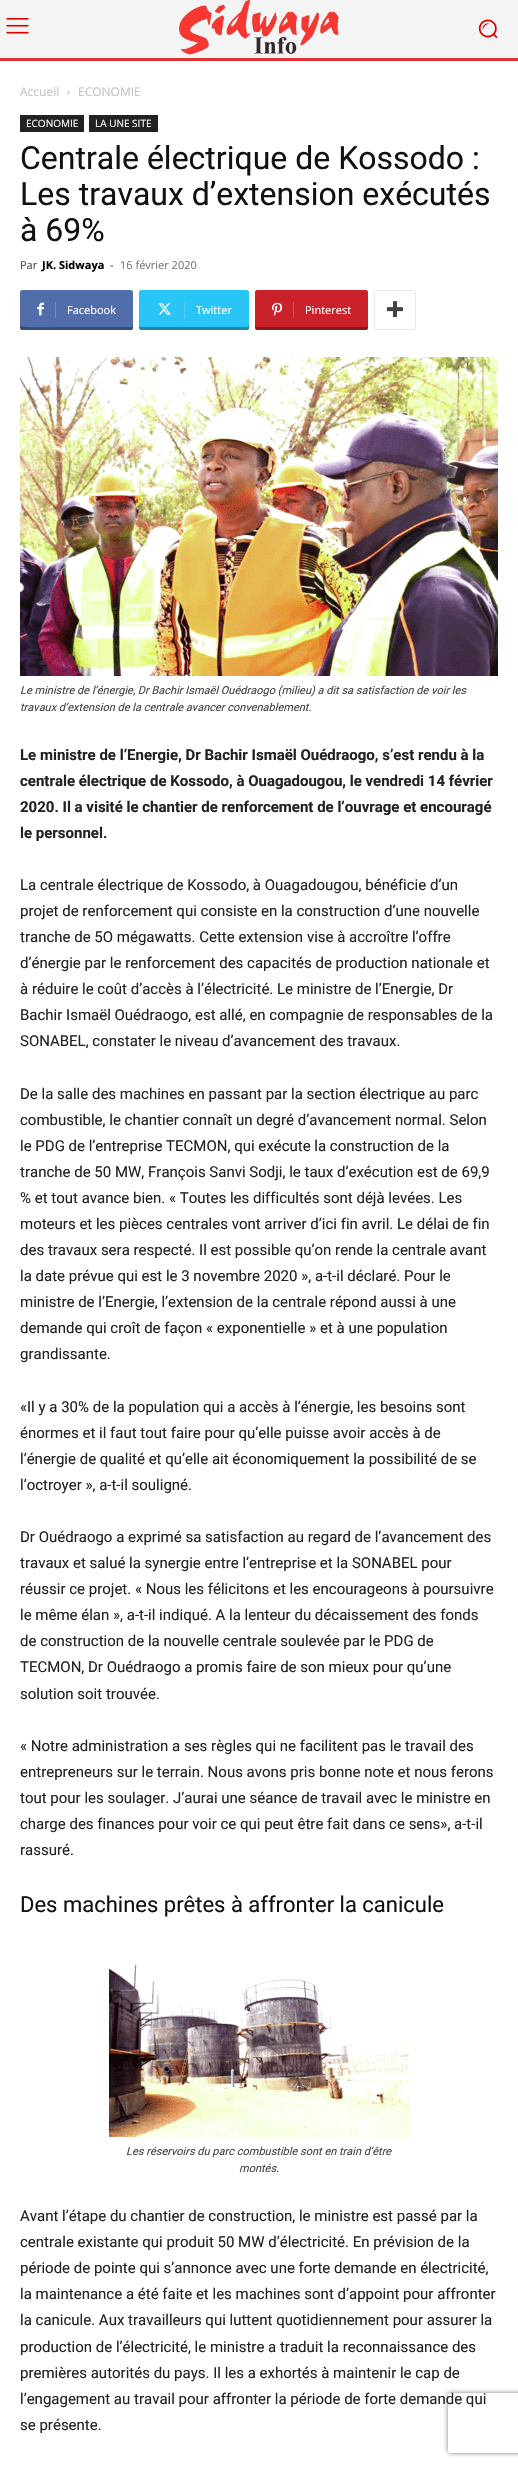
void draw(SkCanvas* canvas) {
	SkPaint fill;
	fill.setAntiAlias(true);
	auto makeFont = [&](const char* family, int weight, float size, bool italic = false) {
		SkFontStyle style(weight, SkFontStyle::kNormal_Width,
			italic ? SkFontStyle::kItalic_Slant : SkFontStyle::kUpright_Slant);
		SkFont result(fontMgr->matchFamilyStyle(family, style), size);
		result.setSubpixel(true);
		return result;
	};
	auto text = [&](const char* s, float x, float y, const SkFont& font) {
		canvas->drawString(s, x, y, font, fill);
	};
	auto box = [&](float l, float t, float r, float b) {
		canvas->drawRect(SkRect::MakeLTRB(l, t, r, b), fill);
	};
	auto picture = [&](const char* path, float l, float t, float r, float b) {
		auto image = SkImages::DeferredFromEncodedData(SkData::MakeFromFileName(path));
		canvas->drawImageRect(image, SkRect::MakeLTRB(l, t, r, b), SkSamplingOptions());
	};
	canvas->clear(0xFFFFFFFF);
	fill.setColor(0xFFF4F4F4);
	box(0, 0, 518, 58);
	picture("image0.png", 6, 18, 29, 34);
	picture("image1.png", 179, 0, 339, 55);
	picture("image2.png", 478, 19, 498, 39);
	fill.setColor(0xFFDD3333);
	box(0, 58, 518, 61);
	picture("image3.png", 67, 90, 70, 95);
	fill.setColor(0xFF222222);
	box(20, 115, 84, 132);
	box(89, 115, 158, 132);
	fill.setColor(0xFF516EAB);
	canvas->drawPath(SkPathBuilder().moveTo(55, 290).lineTo(131, 290).cubicTo(132, 290, 133, 291, 133, 292).lineTo(133, 328).cubicTo(133, 329, 132, 330, 131, 330).lineTo(55, 330).close().detach(), fill);
	fill.setColor(0x4F000000);
	canvas->drawPath(SkPathBuilder().moveTo(55, 327).lineTo(55, 330).lineTo(131, 330).cubicTo(132, 330, 133, 329, 133, 328).lineTo(133, 325).cubicTo(133, 326, 132, 327, 131, 327).close().detach(), fill);
	fill.setColor(0xFF516EAB);
	canvas->drawPath(SkPathBuilder().moveTo(22, 290).lineTo(61, 290).lineTo(61, 330).lineTo(22, 330).cubicTo(21, 330, 20, 329, 20, 328).lineTo(20, 292).cubicTo(20, 291, 21, 290, 22, 290).close().detach(), fill);
	fill.setColor(0x4F000000);
	canvas->drawPath(SkPathBuilder().moveTo(20, 326).lineTo(20, 328).cubicTo(20, 329, 21, 330, 22, 330).lineTo(61, 330).lineTo(61, 327).cubicTo(57, 327, 22, 328, 20, 326).close().detach(), fill);
	picture("image4.png", 37, 302, 44, 316);
	fill.setColor(0xFF748BBC);
	box(55, 302, 56, 318);
	fill.setColor(0xFF29C5F6);
	canvas->drawPath(SkPathBuilder().moveTo(184, 290).lineTo(247, 290).cubicTo(248, 290, 249, 291, 249, 292).lineTo(249, 328).cubicTo(249, 329, 248, 330, 247, 330).lineTo(184, 330).close().detach(), fill);
	fill.setColor(0x4F000000);
	canvas->drawPath(SkPathBuilder().moveTo(184, 327).lineTo(184, 330).lineTo(247, 330).cubicTo(248, 330, 249, 329, 249, 328).lineTo(249, 325).lineTo(248, 327).close().detach(), fill);
	fill.setColor(0xFF29C5F6);
	canvas->drawPath(SkPathBuilder().moveTo(141, 290).lineTo(190, 290).lineTo(190, 330).lineTo(141, 330).cubicTo(140, 330, 139, 329, 139, 328).lineTo(139, 292).cubicTo(139, 291, 140, 290, 141, 290).close().detach(), fill);
	fill.setColor(0x4F000000);
	canvas->drawPath(SkPathBuilder().moveTo(139, 325).lineTo(139, 328).cubicTo(139, 329, 140, 330, 141, 330).lineTo(190, 330).lineTo(190, 327).lineTo(141, 327).cubicTo(140, 327, 139, 326, 139, 325).close().detach(), fill);
	picture("image5.png", 158, 303, 171, 315);
	fill.setColor(0xFF54D1F8);
	box(184, 302, 185, 318);
	fill.setColor(0xFFCA212A);
	canvas->drawPath(SkPathBuilder().moveTo(293, 290).lineTo(366, 290).cubicTo(367, 290, 368, 291, 368, 292).lineTo(368, 328).cubicTo(368, 329, 367, 330, 366, 330).lineTo(293, 330).close().detach(), fill);
	fill.setColor(0x4F000000);
	canvas->drawPath(SkPathBuilder().moveTo(293, 327).lineTo(293, 330).lineTo(366, 330).cubicTo(367, 330, 368, 329, 368, 328).lineTo(368, 325).cubicTo(368, 326, 367, 327, 366, 327).close().detach(), fill);
	fill.setColor(0xFFCA212A);
	canvas->drawPath(SkPathBuilder().moveTo(257, 290).lineTo(299, 290).lineTo(299, 330).lineTo(257, 330).cubicTo(256, 330, 255, 329, 255, 328).lineTo(255, 292).cubicTo(255, 291, 256, 290, 257, 290).close().detach(), fill);
	fill.setColor(0x4F000000);
	canvas->drawPath(SkPathBuilder().moveTo(255, 325).lineTo(255, 328).cubicTo(255, 329, 256, 330, 257, 330).lineTo(299, 330).lineTo(299, 327).lineTo(257, 327).cubicTo(256, 327, 255, 326, 255, 325).close().detach(), fill);
	picture("image6.png", 272, 302, 283, 316);
	fill.setColor(0xFFD54D55);
	box(293, 302, 294, 318);
	fill.setStyle(SkPaint::kStroke_Style);
	fill.setStrokeWidth(1);
	fill.setColor(0xFFE9E9E9);
	canvas->drawRoundRect(SkRect::MakeLTRB(374.5f, 290.5f, 415.5f, 329.5f), 1.5f, 1.5f, fill);
	picture("image7.png", 387, 301, 403, 318);
	picture("image8.png", 20, 357, 498, 676);
	picture("image9.png", 109, 1964, 409, 2137);
	canvas->save();
	canvas->clipPath(SkPathBuilder(SkPathFillType::kEvenOdd).moveTo(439, 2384).lineTo(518, 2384).lineTo(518, 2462).lineTo(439, 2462).close().moveTo(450, 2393).lineTo(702, 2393).cubicTo(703, 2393, 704, 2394, 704, 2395).lineTo(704, 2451).cubicTo(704, 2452, 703, 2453, 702, 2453).lineTo(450, 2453).cubicTo(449, 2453, 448, 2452, 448, 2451).lineTo(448, 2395).cubicTo(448, 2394, 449, 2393, 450, 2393).close().detach(), true);
	fill.setStyle(SkPaint::kFill_Style);
	fill.setColor(0xFF808080);
	fill.setMaskFilter(SkMaskFilter::MakeBlur(kNormal_SkBlurStyle, 2.5f));
	canvas->drawRoundRect(SkRect::MakeLTRB(448, 2393, 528, 2453), 2, 2, fill);
	fill.setMaskFilter(nullptr);
	canvas->restore();
	auto font1 = makeFont("Open Sans", 400, 12);
	fill.setColor(0xFFC3C3C3);
	text("Accueil", 20, 96, font1);
	text("ECONOMIE", 78, 96, font1);
	auto font2 = makeFont("Open Sans", 400, 10);
	fill.setColor(0xFFFFFFFF);
	text("ECONOMIE", 26, 127, font2);
	text("LA UNE SITE", 95, 127, font2);
	auto font3 = makeFont("Roboto", 400, 32);
	fill.setColor(0xFF111111);
	text("Centrale électrique de Kossodo :", 20, 169, font3);
	text("Les travaux d’extension exécutés", 20, 205, font3);
	text("à 69%", 20, 241, font3);
	auto font4 = makeFont("Open Sans", 400, 11);
	fill.setColor(0xFF444444);
	text("Par", 20, 269, font4);
	auto font5 = makeFont("Open Sans", 700, 11);
	fill.setColor(0xFF000000);
	text("JK. Sidwaya", 42, 269, font5);
	fill.setColor(0xFF444444);
	text("-", 110, 269, font4);
	fill.setColor(0xFF767676);
	text("16 février 2020", 120, 269, font4);
	fill.setColor(0xFFFFFFFF);
	text("Facebook", 67, 314, font4);
	text("Twitter", 196, 314, font4);
	text("Pinterest", 305, 314, font4);
	auto font6 = makeFont("Roboto", 400, 11, true);
	fill.setColor(0xFF444444);
	text("Le ministre de l’énergie, Dr Bachir Ismaël Ouédraogo (milieu) a dit sa satisfaction de voir les", 20, 694, font6);
	text("travaux d’extension de la centrale avancer convenablement.", 20, 711, font6);
	auto font7 = makeFont("Roboto", 700, 15);
	fill.setColor(0xFF222222);
	text("Le ministre de l’Energie, Dr Bachir Ismaël Ouédraogo, s’est rendu à la", 20, 760, font7);
	text("centrale électrique de Kossodo, à Ouagadougou, le vendredi 14 février", 20, 786, font7);
	text("2020. Il a visité le chantier de renforcement de l’ouvrage et encouragé", 20, 812, font7);
	text("le personnel.", 20, 838, font7);
	auto font8 = makeFont("Roboto", 400, 15);
	text("La centrale électrique de Kossodo, à Ouagadougou, bénéficie d’un", 20, 890, font8);
	text("projet de renforcement qui consiste en la construction d’une nouvelle", 20, 916, font8);
	text("tranche de 5O mégawatts. Cette extension vise à accroître l’offre", 20, 942, font8);
	text("d’énergie par le renforcement des capacités de production nationale et", 20, 968, font8);
	text("à réduire le coût d’accès à l’électricité. Le ministre de l’Energie, Dr", 20, 994, font8);
	text("Bachir Ismaël Ouédraogo, est allé, en compagnie de responsables de la", 20, 1020, font8);
	text("SONABEL, constater le niveau d’avancement des travaux.", 20, 1046, font8);
	text("De la salle des machines en passant par la section électrique au parc", 20, 1099, font8);
	text("combustible, le chantier connaît un degré d’avancement normal. Selon", 20, 1125, font8);
	text("le PDG de l’entreprise TECMON, qui exécute la construction de la", 20, 1151, font8);
	text("tranche de 50 MW, François Sanvi Sodji, le taux d’exécution est de 69,9", 20, 1177, font8);
	text("% et tout avance bien. « Toutes les difficultés sont déjà levées. Les", 20, 1203, font8);
	text("moteurs et les pièces centrales vont arriver d’ici fin avril. Le délai de fin", 20, 1229, font8);
	text("des travaux sera respecté. Il est possible qu’on rende la centrale avant", 20, 1255, font8);
	text("la date prévue qui est le 3 novembre 2020 », a-t-il déclaré. Pour le", 20, 1281, font8);
	text("ministre de l’Energie, l’extension de la centrale répond aussi à une", 20, 1307, font8);
	text("demande qui croît de façon « exponentielle » et à une population", 20, 1333, font8);
	text("grandissante.", 20, 1359, font8);
	text("«Il y a 30% de la population qui a accès à l’énergie, les besoins sont", 20, 1412, font8);
	text("énormes et il faut tout faire pour qu’elle puisse avoir accès à de", 20, 1438, font8);
	text("l’énergie de qualité et qu’elle ait économiquement la possibilité de se", 20, 1464, font8);
	text("l’octroyer », a-t-il souligné.", 20, 1490, font8);
	text("Dr Ouédraogo a exprimé sa satisfaction au regard de l’avancement des", 20, 1542, font8);
	text("travaux et salué la synergie entre l’entreprise et la SONABEL pour", 20, 1568, font8);
	text("réussir ce projet. « Nous les félicitons et les encourageons à poursuivre", 20, 1594, font8);
	text("le même élan », a-t-il indiqué. A la lenteur du décaissement des fonds", 20, 1620, font8);
	text("de construction de la nouvelle centrale soulevée par le PDG de", 20, 1646, font8);
	text("TECMON, Dr Ouédraogo a promis faire de son mieux pour qu’une", 20, 1672, font8);
	text("solution soit trouvée.", 20, 1699, font8);
	text("« Notre administration a ses règles qui ne facilitent pas le travail des", 20, 1751, font8);
	text("entrepreneurs sur le terrain. Nous avons pris bonne note et nous ferons", 20, 1777, font8);
	text("tout pour les soulager. J’aurai une séance de travail avec le ministre en", 20, 1803, font8);
	text("charge des finances pour voir ce qui peut être fait dans ce sens», a-t-il", 20, 1829, font8);
	text("rassuré.", 20, 1855, font8);
	auto font9 = makeFont("Roboto", 400, 22);
	fill.setColor(0xFF111111);
	text("Des machines prêtes à affronter la canicule", 20, 1912, font9);
	fill.setColor(0xFF444444);
	text("Les réservoirs du parc combustible sont en train d’être", 126, 2155, font6);
	text("montés.", 239, 2172, font6);
	fill.setColor(0xFF222222);
	text("Avant l’étape du chantier de construction, le ministre est passé par la", 20, 2221, font8);
	text("centrale existante qui produit 50 MW d’électricité. En prévision de la", 20, 2247, font8);
	text("période de pointe qui s’annonce avec une forte demande en électricité,", 20, 2273, font8);
	text("la maintenance a été faite et les machines sont d’appoint pour affronter", 20, 2299, font8);
	text("la canicule. Aux travailleurs qui luttent quotidiennement pour assurer la", 20, 2325, font8);
	text("production de l’électricité, le ministre a traduit la reconnaissance des", 20, 2352, font8);
	text("premières autorités du pays. Il les a exhortés à maintenir le cap de", 20, 2378, font8);
	text("l’engagement au travail pour affronter la période de forte demande qui", 20, 2404, font8);
	text("se présente.", 20, 2430, font8);
}
